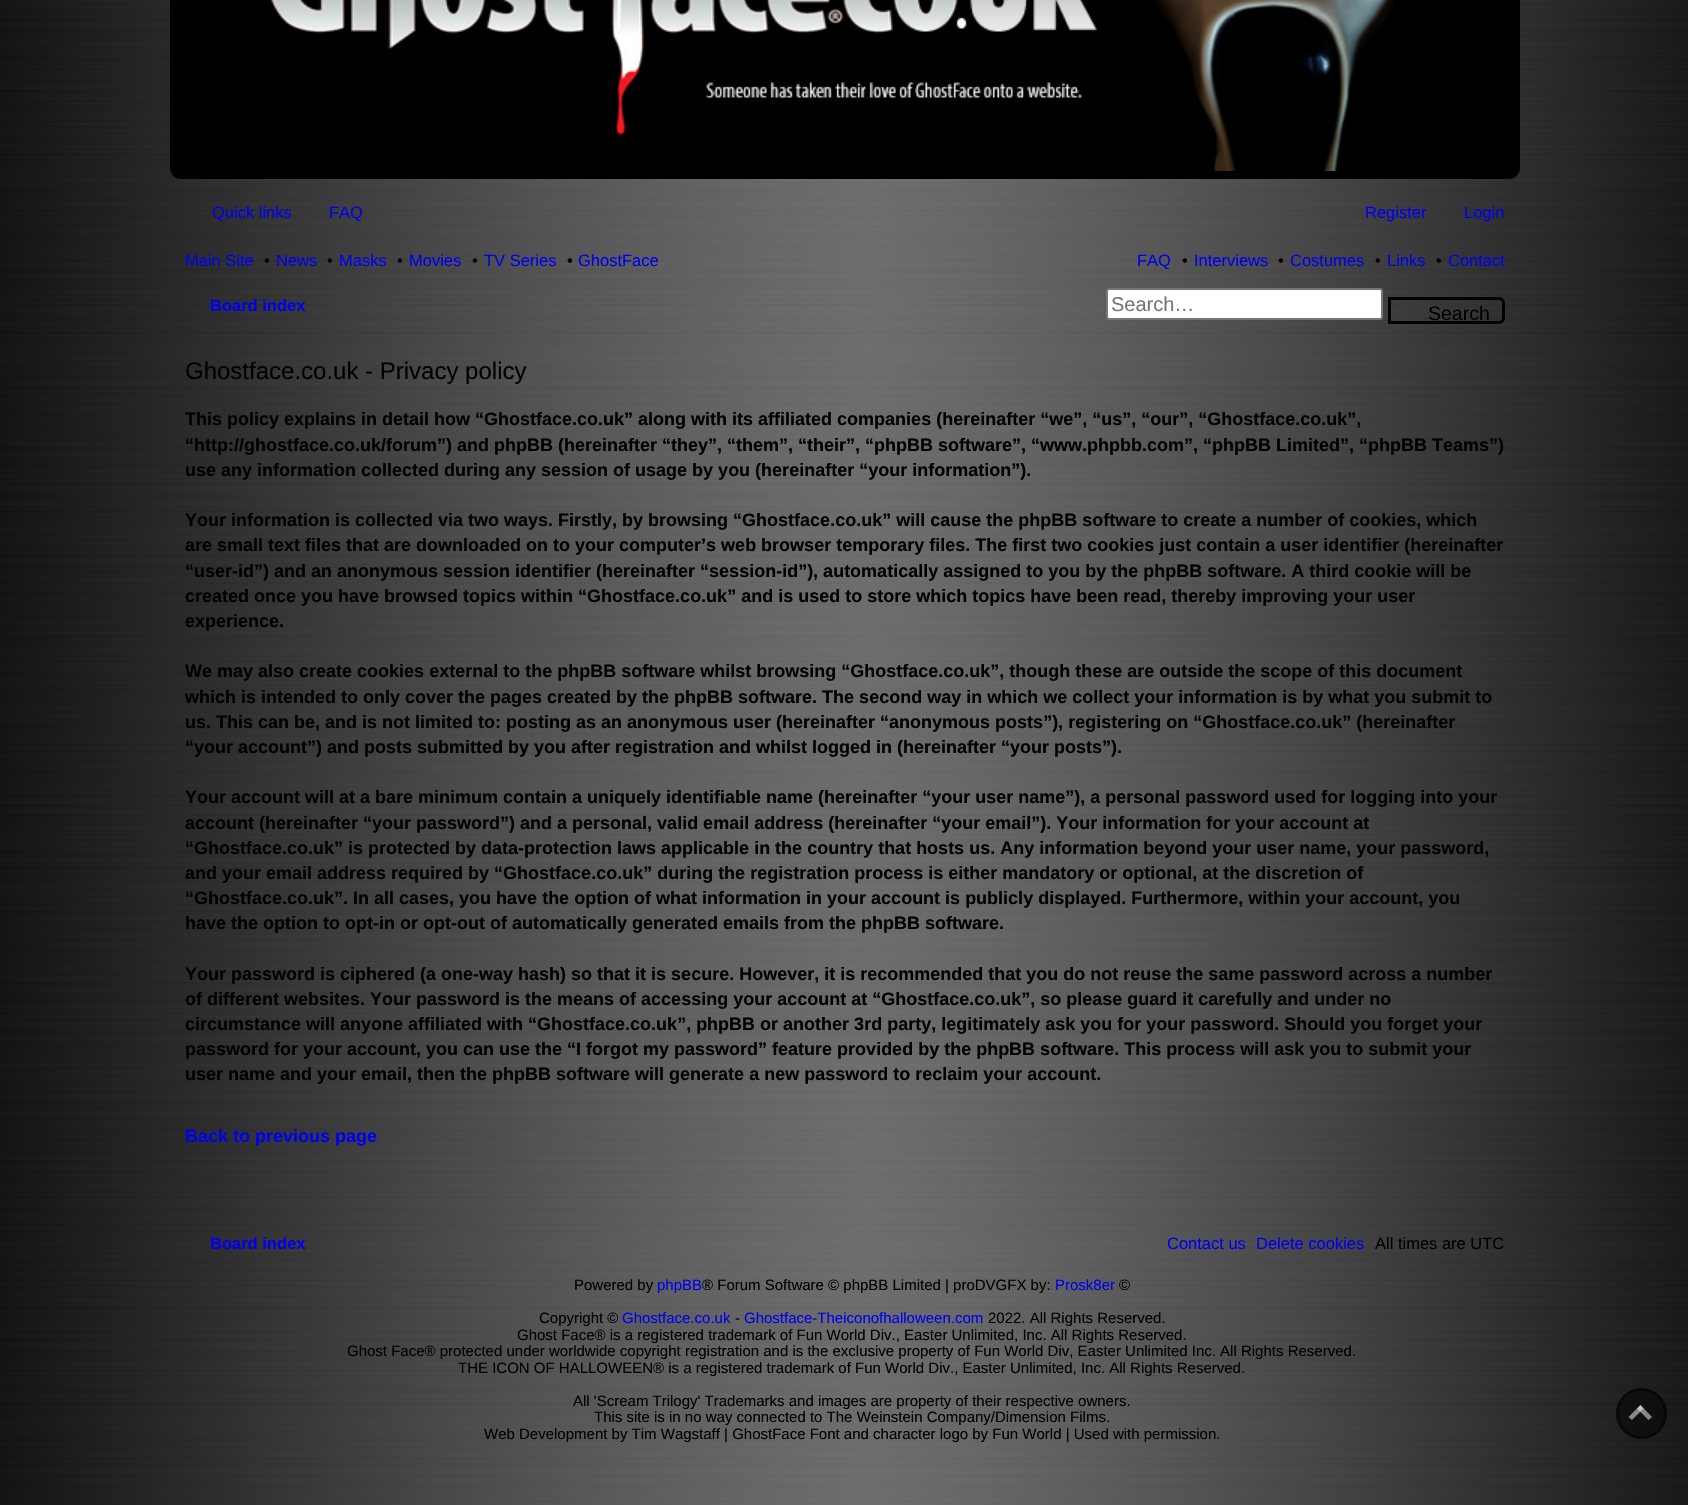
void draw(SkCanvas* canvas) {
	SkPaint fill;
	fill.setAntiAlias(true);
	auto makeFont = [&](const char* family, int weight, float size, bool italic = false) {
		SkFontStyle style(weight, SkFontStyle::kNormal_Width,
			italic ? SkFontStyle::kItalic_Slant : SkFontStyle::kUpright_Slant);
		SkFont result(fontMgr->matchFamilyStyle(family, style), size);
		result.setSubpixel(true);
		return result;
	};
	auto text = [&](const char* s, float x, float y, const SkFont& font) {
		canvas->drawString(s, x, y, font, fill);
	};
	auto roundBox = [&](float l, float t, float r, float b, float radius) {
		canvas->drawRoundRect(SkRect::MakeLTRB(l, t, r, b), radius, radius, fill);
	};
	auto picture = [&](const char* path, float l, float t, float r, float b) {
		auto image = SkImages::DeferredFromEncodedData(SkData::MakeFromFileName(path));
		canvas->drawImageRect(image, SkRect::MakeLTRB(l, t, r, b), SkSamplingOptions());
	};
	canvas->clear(0xFFFFFFFF);
	picture("image0.png", 0, 0, 1688, 1505);
	fill.setColor(0xFF000000);
	roundBox(170, -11, 1520, 179, 11);
	picture("image1.png", 270, 0, 1394, 171);
	fill.setColor(0xFFFFFFFF);
	canvas->drawRoundRect(SkRect::MakeLTRB(1107, 289, 1382, 319), 2, 2, fill);
	fill.setStyle(SkPaint::kStroke_Style);
	fill.setStrokeWidth(2);
	fill.setColor(0xFF767676);
	canvas->drawRoundRect(SkRect::MakeLTRB(1107, 289, 1382, 319), 2, 2, fill);
	fill.setStrokeWidth(3);
	fill.setColor(0xFF000000);
	canvas->drawPath(SkPathBuilder().moveTo(1389.5f, 298.5f).lineTo(1499, 298.5f).cubicTo(1501.5f, 298.5f, 1503.5f, 300.5f, 1503.5f, 303).lineTo(1503.5f, 318).cubicTo(1503.5f, 320.5f, 1501.5f, 322.5f, 1499, 322.5f).lineTo(1389.5f, 322.5f).close().detach(), fill);
	fill.setStyle(SkPaint::kFill_Style);
	fill.setColor(0x80000000);
	canvas->drawCircle(1641.5f, 1413.5f, 25.5f, fill);
	fill.setStyle(SkPaint::kStroke_Style);
	canvas->drawCircle(1641.5f, 1413.5f, 24, fill);
	fill.setStyle(SkPaint::kFill_Style);
	fill.setColor(0xFF878787);
	canvas->drawPath(SkPathBuilder().moveTo(1643.5f, 1408.5f).lineTo(1632, 1420).lineTo(1628.5f, 1417).lineTo(1640.5f, 1405).close().detach(), fill);
	fill.setColor(0x80FFFFFF);
	canvas->drawPath(SkPathBuilder().moveTo(1652, 1417).lineTo(1648.5f, 1420).lineTo(1637, 1408.5f).lineTo(1640.5f, 1405).close().detach(), fill);
	auto font1 = makeFont("Liberation Sans", 400, 16.5f);
	fill.setColor(0xFF0000EE);
	text("Quick links", 212, 218, font1);
	text("FAQ", 329, 218, font1);
	text("Register", 1365, 218, font1);
	text("Login", 1464, 218, font1);
	text("Main Site", 185, 266, font1);
	fill.setColor(0xFF000000);
	text("•", 264, 266, font1);
	fill.setColor(0xFF0000EE);
	text("News", 276, 266, font1);
	fill.setColor(0xFF000000);
	text("•", 327, 266, font1);
	fill.setColor(0xFF0000EE);
	text("Masks", 339, 266, font1);
	fill.setColor(0xFF000000);
	text("•", 397, 266, font1);
	fill.setColor(0xFF0000EE);
	text("Movies", 409, 266, font1);
	fill.setColor(0xFF000000);
	text("•", 472, 266, font1);
	fill.setColor(0xFF0000EE);
	text("TV Series", 484, 266, font1);
	fill.setColor(0xFF000000);
	text("•", 567, 266, font1);
	fill.setColor(0xFF0000EE);
	text("GhostFace", 578, 266, font1);
	text("FAQ", 1137, 266, font1);
	fill.setColor(0xFF000000);
	text("•", 1182, 266, font1);
	fill.setColor(0xFF0000EE);
	text("Interviews", 1194, 266, font1);
	fill.setColor(0xFF000000);
	text("•", 1278, 266, font1);
	fill.setColor(0xFF0000EE);
	text("Costumes", 1290, 266, font1);
	fill.setColor(0xFF000000);
	text("•", 1375, 266, font1);
	fill.setColor(0xFF0000EE);
	text("Links", 1387, 266, font1);
	fill.setColor(0xFF000000);
	text("•", 1436, 266, font1);
	fill.setColor(0xFF0000EE);
	text("Contact", 1448, 266, font1);
	auto font2 = makeFont("Liberation Sans", 700, 16.5f);
	text("Board index", 210, 311, font2);
	auto font3 = makeFont("Liberation Sans", 400, 20);
	fill.setColor(0xFF757575);
	text("Search…", 1111, 311, font3);
	auto font4 = makeFont("Liberation Sans", 400, 19.5f);
	fill.setColor(0xFF000000);
	text("Search", 1428, 320, font4);
	auto font5 = makeFont("Liberation Sans", 400, 24);
	text("Ghostface.co.uk - Privacy policy", 185, 379, font5);
	canvas->save();
	canvas->clipRect(SkRect::MakeLTRB(185, 350, 1505, 1169));
	auto font6 = makeFont("Liberation Sans", 700, 18);
	text("This policy explains in detail how “Ghostface.co.uk” along with its affiliated companies (hereinafter “we”, “us”, “our”, “Ghostface.co.uk”,", 185, 425, font6);
	canvas->restore();
	text("“http://ghostface.co.uk/forum”) and phpBB (hereinafter “they”, “them”, “their”, “phpBB software”, “www.phpbb.com”, “phpBB Limited”, “phpBB Teams”)", 185, 451, font6);
	text("use any information collected during any session of usage by you (hereinafter “your information”).", 185, 476, font6);
	text("Your information is collected via two ways. Firstly, by browsing “Ghostface.co.uk” will cause the phpBB software to create a number of cookies, which", 185, 526, font6);
	text("are small text files that are downloaded on to your computer’s web browser temporary files. The first two cookies just contain a user identifier (hereinafter", 185, 551, font6);
	text("“user-id”) and an anonymous session identifier (hereinafter “session-id”), automatically assigned to you by the phpBB software. A third cookie will be", 185, 577, font6);
	text("created once you have browsed topics within “Ghostface.co.uk” and is used to store which topics have been read, thereby improving your user", 185, 602, font6);
	text("experience.", 185, 627, font6);
	text("We may also create cookies external to the phpBB software whilst browsing “Ghostface.co.uk”, though these are outside the scope of this document", 185, 677, font6);
	text("which is intended to only cover the pages created by the phpBB software. The second way in which we collect your information is by what you submit to", 185, 703, font6);
	text("us. This can be, and is not limited to: posting as an anonymous user (hereinafter “anonymous posts”), registering on “Ghostface.co.uk” (hereinafter", 185, 728, font6);
	text("“your account”) and posts submitted by you after registration and whilst logged in (hereinafter “your posts”).", 185, 753, font6);
	text("Your account will at a bare minimum contain a uniquely identifiable name (hereinafter “your user name”), a personal password used for logging into your", 185, 803, font6);
	text("account (hereinafter “your password”) and a personal, valid email address (hereinafter “your email”). Your information for your account at", 185, 829, font6);
	text("“Ghostface.co.uk” is protected by data-protection laws applicable in the country that hosts us. Any information beyond your user name, your password,", 185, 854, font6);
	text("and your email address required by “Ghostface.co.uk” during the registration process is either mandatory or optional, at the discretion of", 185, 879, font6);
	text("“Ghostface.co.uk”. In all cases, you have the option of what information in your account is publicly displayed. Furthermore, within your account, you", 185, 904, font6);
	text("have the option to opt-in or opt-out of automatically generated emails from the phpBB software.", 185, 929, font6);
	text("Your password is ciphered (a one-way hash) so that it is secure. However, it is recommended that you do not reuse the same password across a number", 185, 980, font6);
	text("of different websites. Your password is the means of accessing your account at “Ghostface.co.uk”, so please guard it carefully and under no", 185, 1005, font6);
	text("circumstance will anyone affiliated with “Ghostface.co.uk”, phpBB or another 3rd party, legitimately ask you for your password. Should you forget your", 185, 1030, font6);
	text("password for your account, you can use the “I forgot my password” feature provided by the phpBB software. This process will ask you to submit your", 185, 1055, font6);
	text("user name and your email, then the phpBB software will generate a new password to reclaim your account.", 185, 1080, font6);
	fill.setColor(0xFF0000EE);
	text("Back to previous page", 185, 1142, font6);
	text("Board index", 210, 1249, font2);
	text("Contact us", 1167, 1249, font1);
	text("Delete cookies", 1256, 1249, font1);
	fill.setColor(0xFF000000);
	text("All times are UTC", 1375, 1249, font1);
	auto font7 = makeFont("Liberation Sans", 400, 15);
	text("Powered by", 574, 1290, font7);
	fill.setColor(0xFF0000EE);
	text("phpBB", 657, 1290, font7);
	fill.setColor(0xFF000000);
	text("® Forum Software © phpBB Limited | proDVGFX by:", 702, 1290, font7);
	fill.setColor(0xFF0000EE);
	text("Prosk8er", 1055, 1290, font7);
	fill.setColor(0xFF000000);
	text("©", 1119, 1290, font7);
	text("Copyright ©", 539, 1323, font7);
	fill.setColor(0xFF0000EE);
	text("Ghostface.co.uk", 622, 1323, font7);
	fill.setColor(0xFF000000);
	text("-", 735, 1323, font7);
	fill.setColor(0xFF0000EE);
	text("Ghostface-Theiconofhalloween.com", 744, 1323, font7);
	fill.setColor(0xFF000000);
	text("2022. All Rights Reserved.", 988, 1323, font7);
	text("Ghost Face® is a registered trademark of Fun World Div., Easter Unlimited, Inc. All Rights Reserved.", 517, 1340, font7);
	text("Ghost Face® protected under worldwide copyright registration and is the exclusive property of Fun World Div, Easter Unlimited Inc. All Rights Reserved.", 347, 1356, font7);
	text("THE ICON OF HALLOWEEN® is a registered trademark of Fun World Div., Easter Unlimited, Inc. All Rights Reserved.", 458, 1373, font7);
	text("All 'Scream Trilogy' Trademarks and images are property of their respective owners.", 573, 1406, font7);
	text("This site is in no way connected to The Weinstein Company/Dimension Films.", 594, 1422, font7);
	text("Web Development by Tim Wagstaff | GhostFace Font and character logo by Fun World | Used with permission.", 484, 1439, font7);
}
